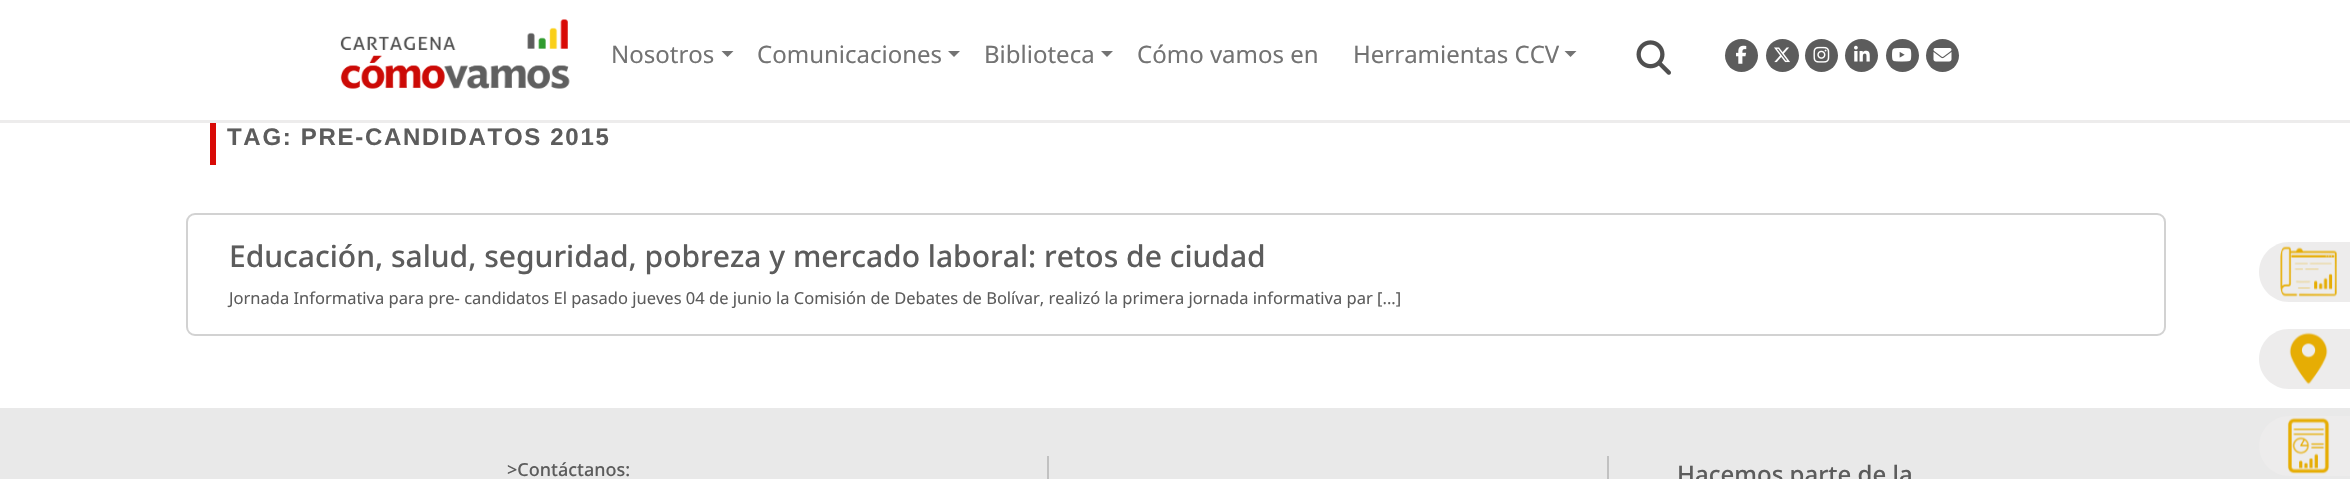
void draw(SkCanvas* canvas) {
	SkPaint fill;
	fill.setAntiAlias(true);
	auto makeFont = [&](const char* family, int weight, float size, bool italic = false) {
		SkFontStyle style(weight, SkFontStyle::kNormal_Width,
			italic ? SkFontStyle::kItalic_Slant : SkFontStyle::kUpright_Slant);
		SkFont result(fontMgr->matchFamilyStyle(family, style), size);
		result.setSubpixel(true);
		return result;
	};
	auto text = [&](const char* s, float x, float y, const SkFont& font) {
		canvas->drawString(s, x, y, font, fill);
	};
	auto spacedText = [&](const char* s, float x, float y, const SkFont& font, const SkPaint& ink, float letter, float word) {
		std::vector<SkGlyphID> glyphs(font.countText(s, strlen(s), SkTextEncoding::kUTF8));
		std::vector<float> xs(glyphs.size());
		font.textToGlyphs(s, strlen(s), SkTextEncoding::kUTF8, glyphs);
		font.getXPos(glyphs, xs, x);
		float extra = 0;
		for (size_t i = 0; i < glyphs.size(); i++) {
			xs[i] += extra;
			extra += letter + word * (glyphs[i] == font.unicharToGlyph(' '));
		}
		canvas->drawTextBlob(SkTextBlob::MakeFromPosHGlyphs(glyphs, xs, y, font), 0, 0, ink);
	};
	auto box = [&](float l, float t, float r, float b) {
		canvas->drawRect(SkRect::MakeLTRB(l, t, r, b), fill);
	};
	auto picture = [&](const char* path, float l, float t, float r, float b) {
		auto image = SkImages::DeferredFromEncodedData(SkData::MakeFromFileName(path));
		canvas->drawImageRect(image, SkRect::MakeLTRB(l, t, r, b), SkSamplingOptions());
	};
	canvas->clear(0xFFFFFFFF);
	fill.setColor(0xFFEDECEC);
	box(0, 120, 2350, 123);
	picture("image0.png", 340, 19, 570, 89);
	fill.setColor(0xFF737373);
	canvas->drawPath(SkPathBuilder().moveTo(721.5f, 51).lineTo(733.5f, 51).lineTo(727.5f, 57).close().detach(), fill);
	canvas->drawPath(SkPathBuilder().moveTo(948, 51).lineTo(960, 51).lineTo(954, 57).close().detach(), fill);
	canvas->drawPath(SkPathBuilder().moveTo(1101, 51).lineTo(1113, 51).lineTo(1107, 57).close().detach(), fill);
	canvas->drawPath(SkPathBuilder().moveTo(1564.5f, 51).lineTo(1576.5f, 51).lineTo(1570.5f, 57).close().detach(), fill);
	picture("image1.png", 1636, 40, 1671, 75);
	fill.setColor(0xFF5C5C5C);
	canvas->drawCircle(1741.5f, 55.5f, 16.5f, fill);
	picture("image2.png", 1736, 45, 1747, 64);
	canvas->drawCircle(1782.5f, 55.5f, 16.5f, fill);
	picture("image3.png", 1774, 47, 1790, 63);
	canvas->drawCircle(1821.5f, 55.5f, 16.5f, fill);
	picture("image4.png", 1813, 46, 1830, 63);
	canvas->drawCircle(1861.5f, 55.5f, 16.5f, fill);
	picture("image5.png", 1854, 45, 1870, 62);
	canvas->drawCircle(1902.5f, 55.5f, 16.5f, fill);
	picture("image6.png", 1892, 48, 1912, 62);
	canvas->drawCircle(1942.5f, 55.5f, 16.5f, fill);
	picture("image7.png", 1933, 48, 1952, 62);
	fill.setColor(0xFFD80A06);
	box(210, 123, 216, 165);
	fill.setStyle(SkPaint::kStroke_Style);
	fill.setStrokeWidth(2);
	fill.setColor(0xFFD2D2D2);
	canvas->drawRoundRect(SkRect::MakeLTRB(187, 214, 2165, 335), 8, 8, fill);
	fill.setStyle(SkPaint::kFill_Style);
	fill.setColor(0xFFE9E9E9);
	box(0, 408, 2350, 479);
	fill.setColor(0xFFC1C1C1);
	box(1047, 456, 1049, 479);
	box(1607, 456, 1609, 479);
	fill.setColor(0xFFEDECEC);
	canvas->drawPath(SkPathBuilder().moveTo(2289, 242).lineTo(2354, 242).lineTo(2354, 302).lineTo(2289, 302).cubicTo(2272.5f, 302, 2259, 288.5f, 2259, 272).cubicTo(2259, 255.5f, 2272.5f, 242, 2289, 242).close().detach(), fill);
	picture("image8.png", 2280, 246, 2337, 297);
	canvas->drawPath(SkPathBuilder().moveTo(2289, 329).lineTo(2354, 329).lineTo(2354, 389).lineTo(2289, 389).cubicTo(2272.5f, 389, 2259, 375.5f, 2259, 359).cubicTo(2259, 342.5f, 2272.5f, 329, 2289, 329).close().detach(), fill);
	picture("image9.png", 2289, 332, 2328, 385);
	canvas->drawPath(SkPathBuilder().moveTo(2289, 416).lineTo(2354, 416).lineTo(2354, 476).lineTo(2289, 476).cubicTo(2272.5f, 476, 2259, 462.5f, 2259, 446).cubicTo(2259, 429.5f, 2272.5f, 416, 2289, 416).close().detach(), fill);
	picture("image10.png", 2287, 417, 2330, 474);
	auto font1 = makeFont("Noto Sans", 400, 24);
	fill.setColor(0xFF737373);
	text("Nosotros", 611, 63, font1);
	text("Comunicaciones", 757, 63, font1);
	text("Biblioteca", 984, 63, font1);
	text("Cómo vamos en", 1137, 63, font1);
	text("Herramientas CCV", 1353, 63, font1);
	auto font2 = makeFont("Liberation Sans", 700, 24);
	fill.setColor(0xFF5C5C5C);
	spacedText("TAG: PRE-CANDIDATOS 2015", 227, 145, font2, fill, 1.7f, 0);
	auto font3 = makeFont("Noto Sans", 500, 30);
	text("Educación, salud, seguridad, pobreza y mercado laboral: retos de ciudad", 229, 267, font3);
	auto font4 = makeFont("Noto Sans", 400, 16.5f);
	text("Jornada Informativa para pre- candidatos El pasado jueves 04 de junio la Comisión de Debates de Bolívar, realizó la primera jornada informativa par [...]", 229, 304, font4);
	auto font5 = makeFont("Noto Sans", 500, 18);
	text(">Contáctanos:", 507, 476, font5);
	auto font6 = makeFont("Noto Sans", 500, 24);
	text("Hacemos parte de la", 1677, 483, font6);
}
